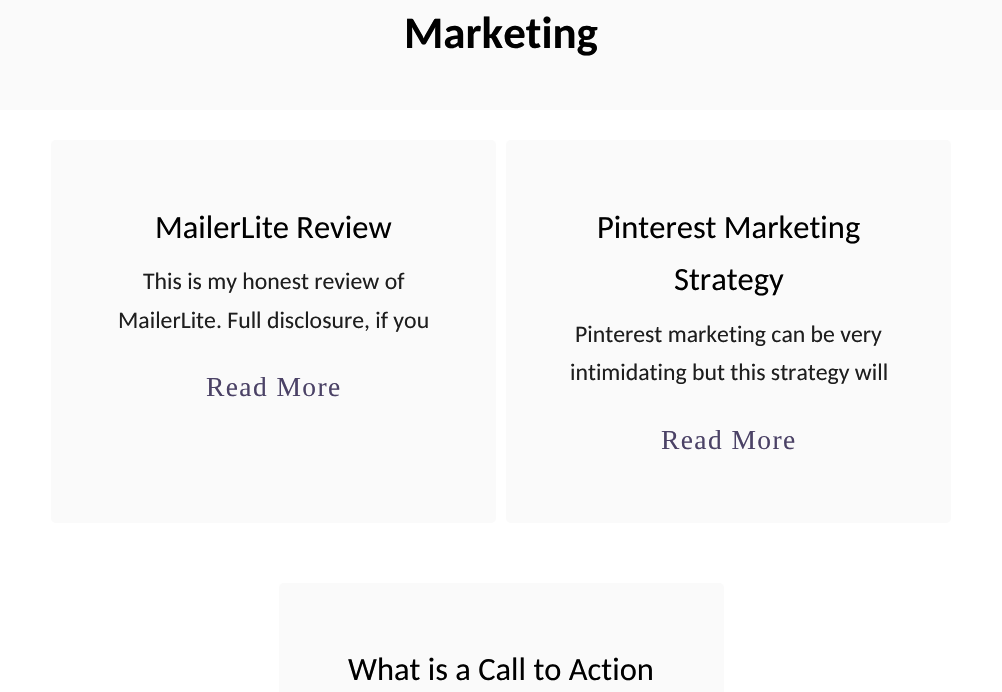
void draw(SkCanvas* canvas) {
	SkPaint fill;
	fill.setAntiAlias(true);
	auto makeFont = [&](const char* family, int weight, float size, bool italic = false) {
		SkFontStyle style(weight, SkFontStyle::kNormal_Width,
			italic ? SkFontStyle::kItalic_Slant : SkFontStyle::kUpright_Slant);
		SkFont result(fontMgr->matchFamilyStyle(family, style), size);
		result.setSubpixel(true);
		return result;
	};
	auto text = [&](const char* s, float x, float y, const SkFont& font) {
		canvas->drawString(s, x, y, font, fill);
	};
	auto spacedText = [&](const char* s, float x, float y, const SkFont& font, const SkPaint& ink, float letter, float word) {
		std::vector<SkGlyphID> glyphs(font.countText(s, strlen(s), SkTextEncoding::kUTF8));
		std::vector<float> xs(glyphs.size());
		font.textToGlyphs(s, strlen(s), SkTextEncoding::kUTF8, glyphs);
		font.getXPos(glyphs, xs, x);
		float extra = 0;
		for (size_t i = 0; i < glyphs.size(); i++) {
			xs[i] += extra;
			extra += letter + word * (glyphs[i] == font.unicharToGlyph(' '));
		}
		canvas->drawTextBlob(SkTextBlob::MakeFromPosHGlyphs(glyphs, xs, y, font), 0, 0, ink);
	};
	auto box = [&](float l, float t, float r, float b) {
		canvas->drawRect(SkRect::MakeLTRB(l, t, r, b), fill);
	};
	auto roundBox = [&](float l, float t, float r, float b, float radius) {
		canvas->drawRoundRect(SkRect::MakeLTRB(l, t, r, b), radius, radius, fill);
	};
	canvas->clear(0xFFFFFFFF);
	fill.setColor(0xFFFAFAFA);
	box(0, 0, 1002, 110);
	roundBox(51, 140, 496, 523, 5);
	roundBox(506, 140, 951, 523, 5);
	roundBox(279, 583, 724, 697, 5);
	auto font1 = makeFont("Carlito", 700, 45);
	fill.setColor(0xFF000000);
	text("Marketing", 404, 48, font1);
	auto font2 = makeFont("Carlito", 400, 32.5f);
	text("MailerLite Review", 155, 238, font2);
	auto font3 = makeFont("Carlito", 400, 23.75f);
	fill.setColor(0xFF1E1E1E);
	text("This is my honest review of", 143, 289, font3);
	text("MailerLite. Full disclosure, if you", 118, 328, font3);
	auto font4 = makeFont("Liberation Serif", 400, 27.5f);
	fill.setColor(0xFF4B4266);
	spacedText("Read More", 206, 396, font4, fill, 1.4f, 0);
	fill.setColor(0xFF000000);
	text("Pinterest Marketing", 597, 238, font2);
	text("Strategy", 674, 290, font2);
	fill.setColor(0xFF1E1E1E);
	text("Pinterest marketing can be very", 575, 342, font3);
	text("intimidating but this strategy will", 570, 380, font3);
	fill.setColor(0xFF4B4266);
	spacedText("Read More", 661, 449, font4, fill, 1.4f, 0);
	fill.setColor(0xFF000000);
	text("What is a Call to Action", 348, 680, font2);
}
